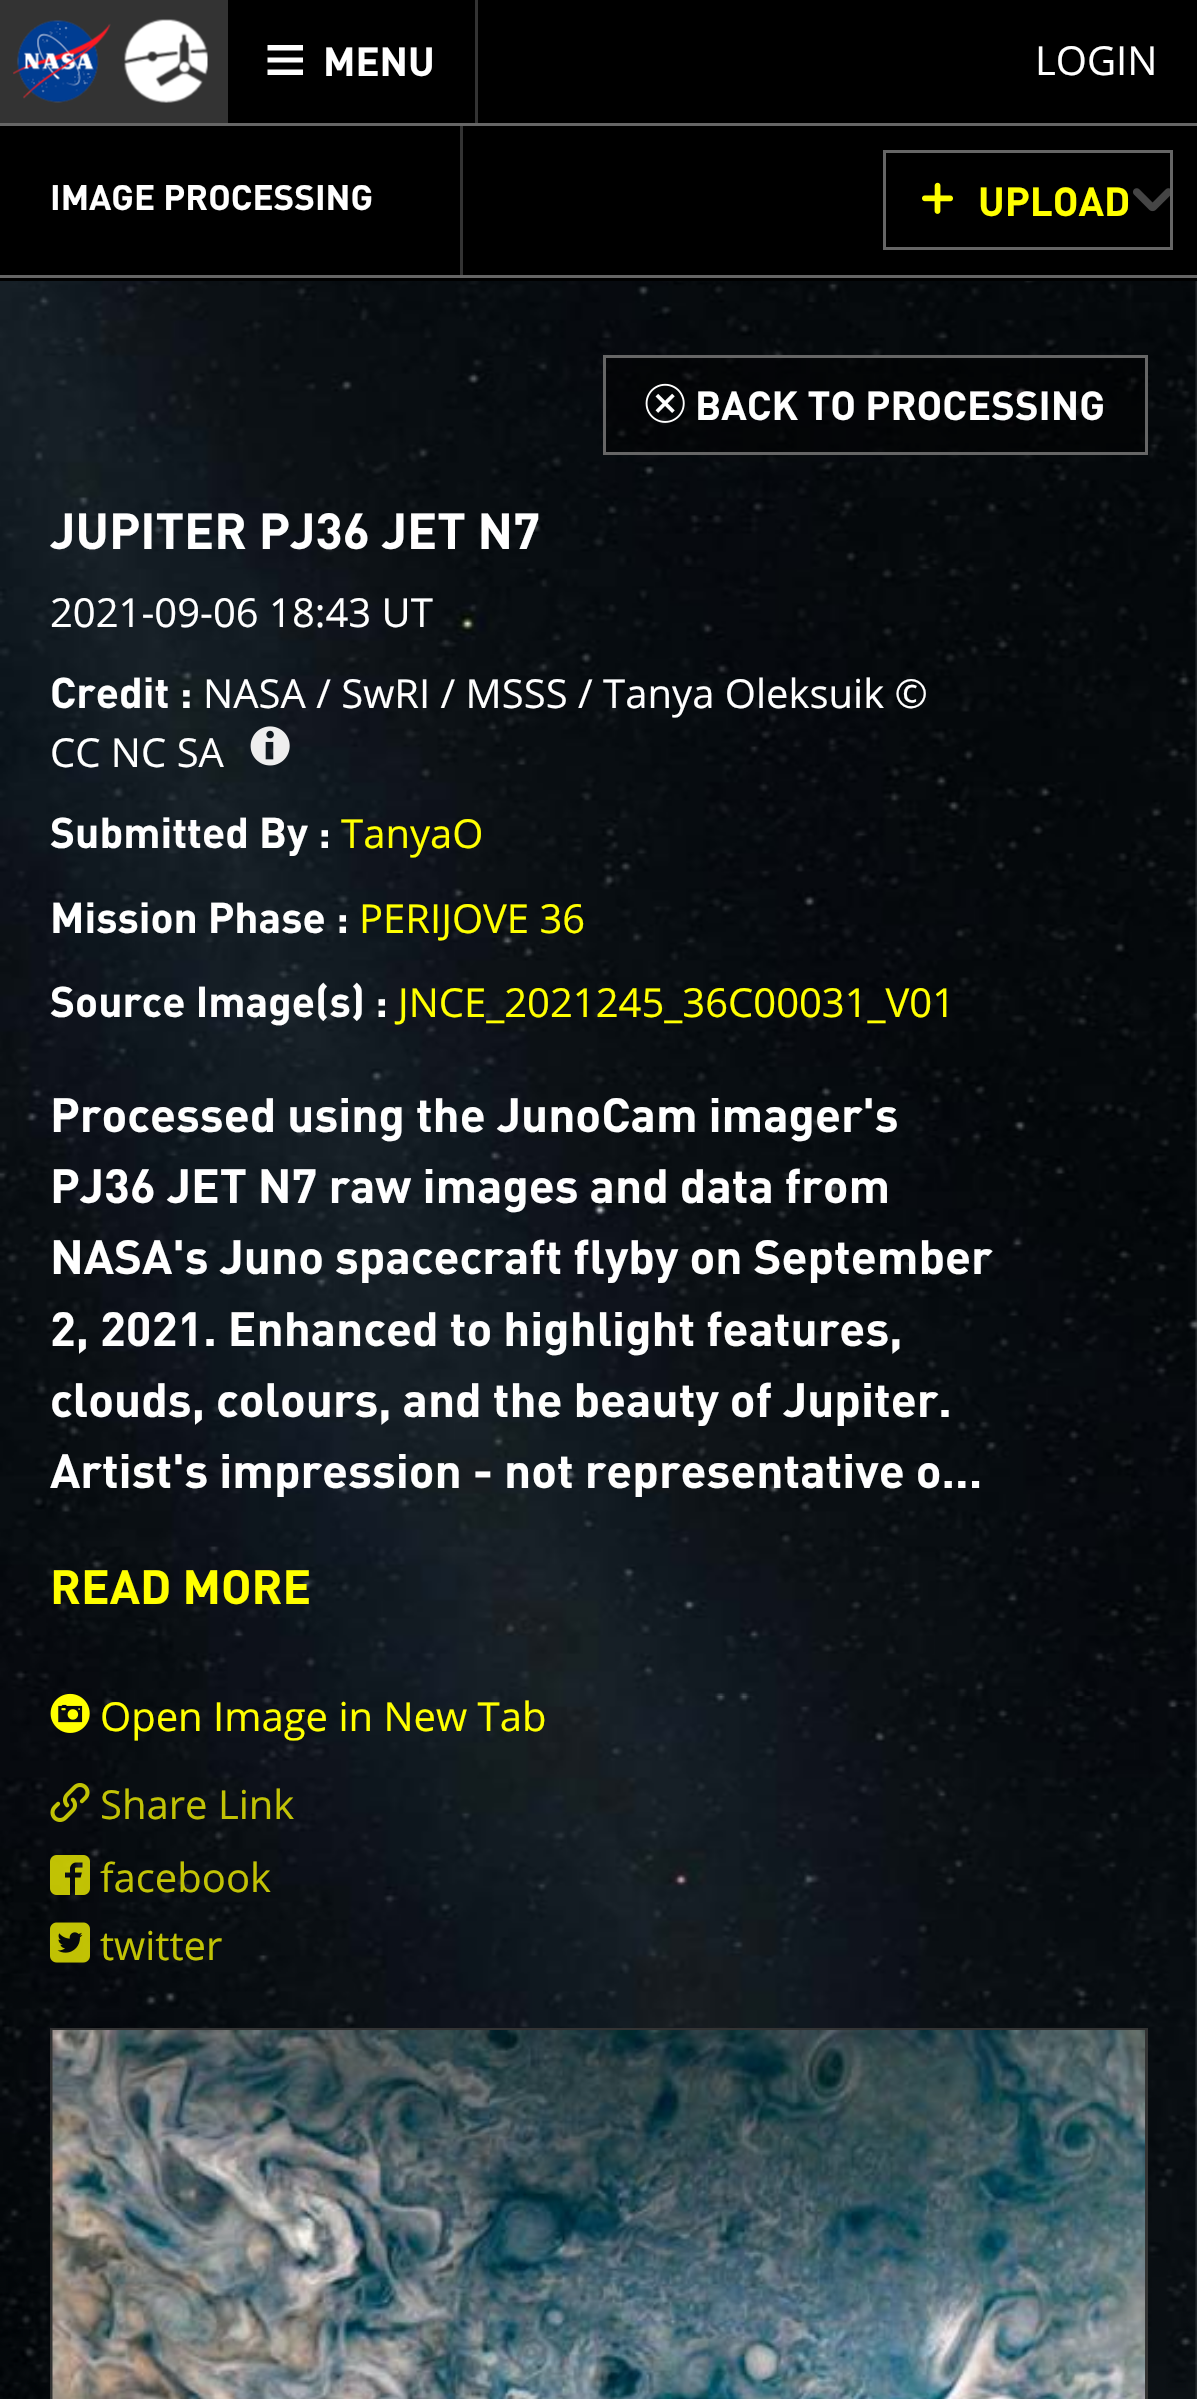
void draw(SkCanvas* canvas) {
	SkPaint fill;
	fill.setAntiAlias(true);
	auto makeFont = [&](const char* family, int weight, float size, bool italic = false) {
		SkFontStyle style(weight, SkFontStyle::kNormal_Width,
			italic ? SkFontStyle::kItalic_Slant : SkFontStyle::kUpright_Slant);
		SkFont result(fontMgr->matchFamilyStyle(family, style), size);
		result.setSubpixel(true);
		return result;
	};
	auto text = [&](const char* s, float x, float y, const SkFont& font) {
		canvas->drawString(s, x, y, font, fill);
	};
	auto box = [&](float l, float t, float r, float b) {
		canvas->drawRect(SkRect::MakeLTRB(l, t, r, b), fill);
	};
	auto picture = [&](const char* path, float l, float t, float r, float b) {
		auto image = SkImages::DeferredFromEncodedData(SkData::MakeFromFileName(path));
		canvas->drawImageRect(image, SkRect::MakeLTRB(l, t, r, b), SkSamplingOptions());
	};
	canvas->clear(0xFFFFFFFF);
	fill.setColor(0xFF000000);
	box(228, 0, 1197, 123);
	box(0, 126, 1197, 275);
	fill.setColor(0xFF333333);
	box(460, 125, 463, 275);
	fill.setColor(0xFF666666);
	box(0, 123, 1197, 126);
	fill.setColor(0xFF333333);
	box(0, 0, 228, 123);
	picture("image0.png", 13, 20, 111, 103);
	picture("image1.png", 124, 19, 208, 103);
	box(475, 0, 478, 123);
	fill.setColor(0xFFFFFFFF);
	canvas->drawPath(SkPathBuilder().moveTo(267.5f, 75).lineTo(303, 75).lineTo(303, 69.5f).lineTo(267.5f, 69.5f).close().moveTo(267.5f, 62.5f).lineTo(303, 62.5f).lineTo(303, 57.5f).lineTo(267.5f, 57.5f).close().moveTo(267.5f, 50.5f).lineTo(303, 50.5f).lineTo(303, 45).lineTo(267.5f, 45).close().detach(), fill);
	fill.setColor(0xFF666666);
	box(0, 275, 1197, 278);
	picture("image2.png", 1133, 188, 1170, 212);
	fill.setColor(0x80000000);
	box(1133, 188, 1170, 212);
	fill.setStyle(SkPaint::kStroke_Style);
	fill.setStrokeWidth(3);
	fill.setColor(0xFF666666);
	canvas->drawRect(SkRect::MakeLTRB(884.5f, 151.5f, 1171.5f, 248.5f), fill);
	picture("image3.png", 922, 182, 953, 214);
	fill.setStyle(SkPaint::kFill_Style);
	fill.setColor(0xFF000000);
	box(0, 278, 1197, 281);
	picture("image11.png", 0, 281, 1197, 2399);
	fill.setColor(0x80000000);
	canvas->drawRect(SkRect::MakeLTRB(604.5f, 356.5f, 1146.5f, 453.5f), fill);
	fill.setStyle(SkPaint::kStroke_Style);
	fill.setColor(0xFF666666);
	canvas->drawRect(SkRect::MakeLTRB(604.5f, 356.5f, 1146.5f, 453.5f), fill);
	picture("image4.png", 645, 383, 685, 423);
	picture("image5.png", 250, 726, 290, 766);
	picture("image6.png", 50, 1693, 90, 1733);
	picture("image7.png", 50, 1783, 90, 1822);
	picture("image8.png", 50, 1855, 90, 1895);
	picture("image9.png", 50, 1922, 90, 1963);
	fill.setColor(0xFF333333);
	canvas->drawRect(SkRect::MakeLTRB(51.5f, 2029.5f, 1146.5f, 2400.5f), fill);
	picture("image10.png", 52, 2030, 1145, 2399);
	auto font1 = makeFont("DIN", 700, 40);
	fill.setStyle(SkPaint::kFill_Style);
	fill.setColor(0xFFFFFFFF);
	text("MENU", 323, 76, font1);
	auto font2 = makeFont("Open Sans", 400, 40);
	text("LOGIN", 1035, 75, font2);
	auto font3 = makeFont("DIN", 700, 35);
	text("IMAGE PROCESSING", 50, 210, font3);
	fill.setColor(0xFFFFFF00);
	text("UPLOAD", 978, 216, font1);
	fill.setColor(0xFFFFFFFF);
	text("BACK TO PROCESSING", 695, 420, font1);
	auto font4 = makeFont("DIN", 700, 50);
	text("JUPITER PJ36 JET N7", 50, 549, font4);
	text("2021-09-06 18:43 UT", 50, 627, font2);
	auto font5 = makeFont("DIN", 700, 42.5f);
	text("Credit :", 50, 708, font5);
	text("NASA / SwRI / MSSS / Tanya Oleksuik ©", 203, 708, font2);
	text("CC NC SA", 50, 767, font2);
	text("Submitted By :", 50, 848, font5);
	fill.setColor(0xFFFFFF00);
	text("TanyaO", 341, 848, font2);
	fill.setColor(0xFFFFFFFF);
	text("Mission Phase :", 50, 933, font5);
	fill.setColor(0xFFFFFF00);
	text("PERIJOVE 36", 359, 933, font2);
	fill.setColor(0xFFFFFFFF);
	text("Source Image(s) :", 50, 1017, font5);
	fill.setColor(0xFFFFFF00);
	text("JNCE_2021245_36C00031_V01", 398, 1017, font2);
	auto font6 = makeFont("DIN", 700, 47.5f);
	fill.setColor(0xFFFFFFFF);
	text("Processed using the JunoCam imager's", 50, 1132, font6);
	text("PJ36 JET N7 raw images and data from", 50, 1203, font6);
	text("NASA's Juno spacecraft flyby on September", 50, 1274, font6);
	text("2, 2021. Enhanced to highlight features,", 50, 1346, font6);
	text("clouds, colours, and the beauty of Jupiter.", 50, 1417, font6);
	text("Artist's impression - not representative o...", 50, 1488, font6);
	fill.setColor(0xFFFFFF00);
	text("READ MORE", 50, 1604, font6);
	text("Open Image in New Tab", 100, 1731, font2);
	fill.setColor(0xFFC2C305);
	text("Share Link", 100, 1819, font2);
	text("facebook", 100, 1892, font2);
	text("twitter", 100, 1960, font2);
}
